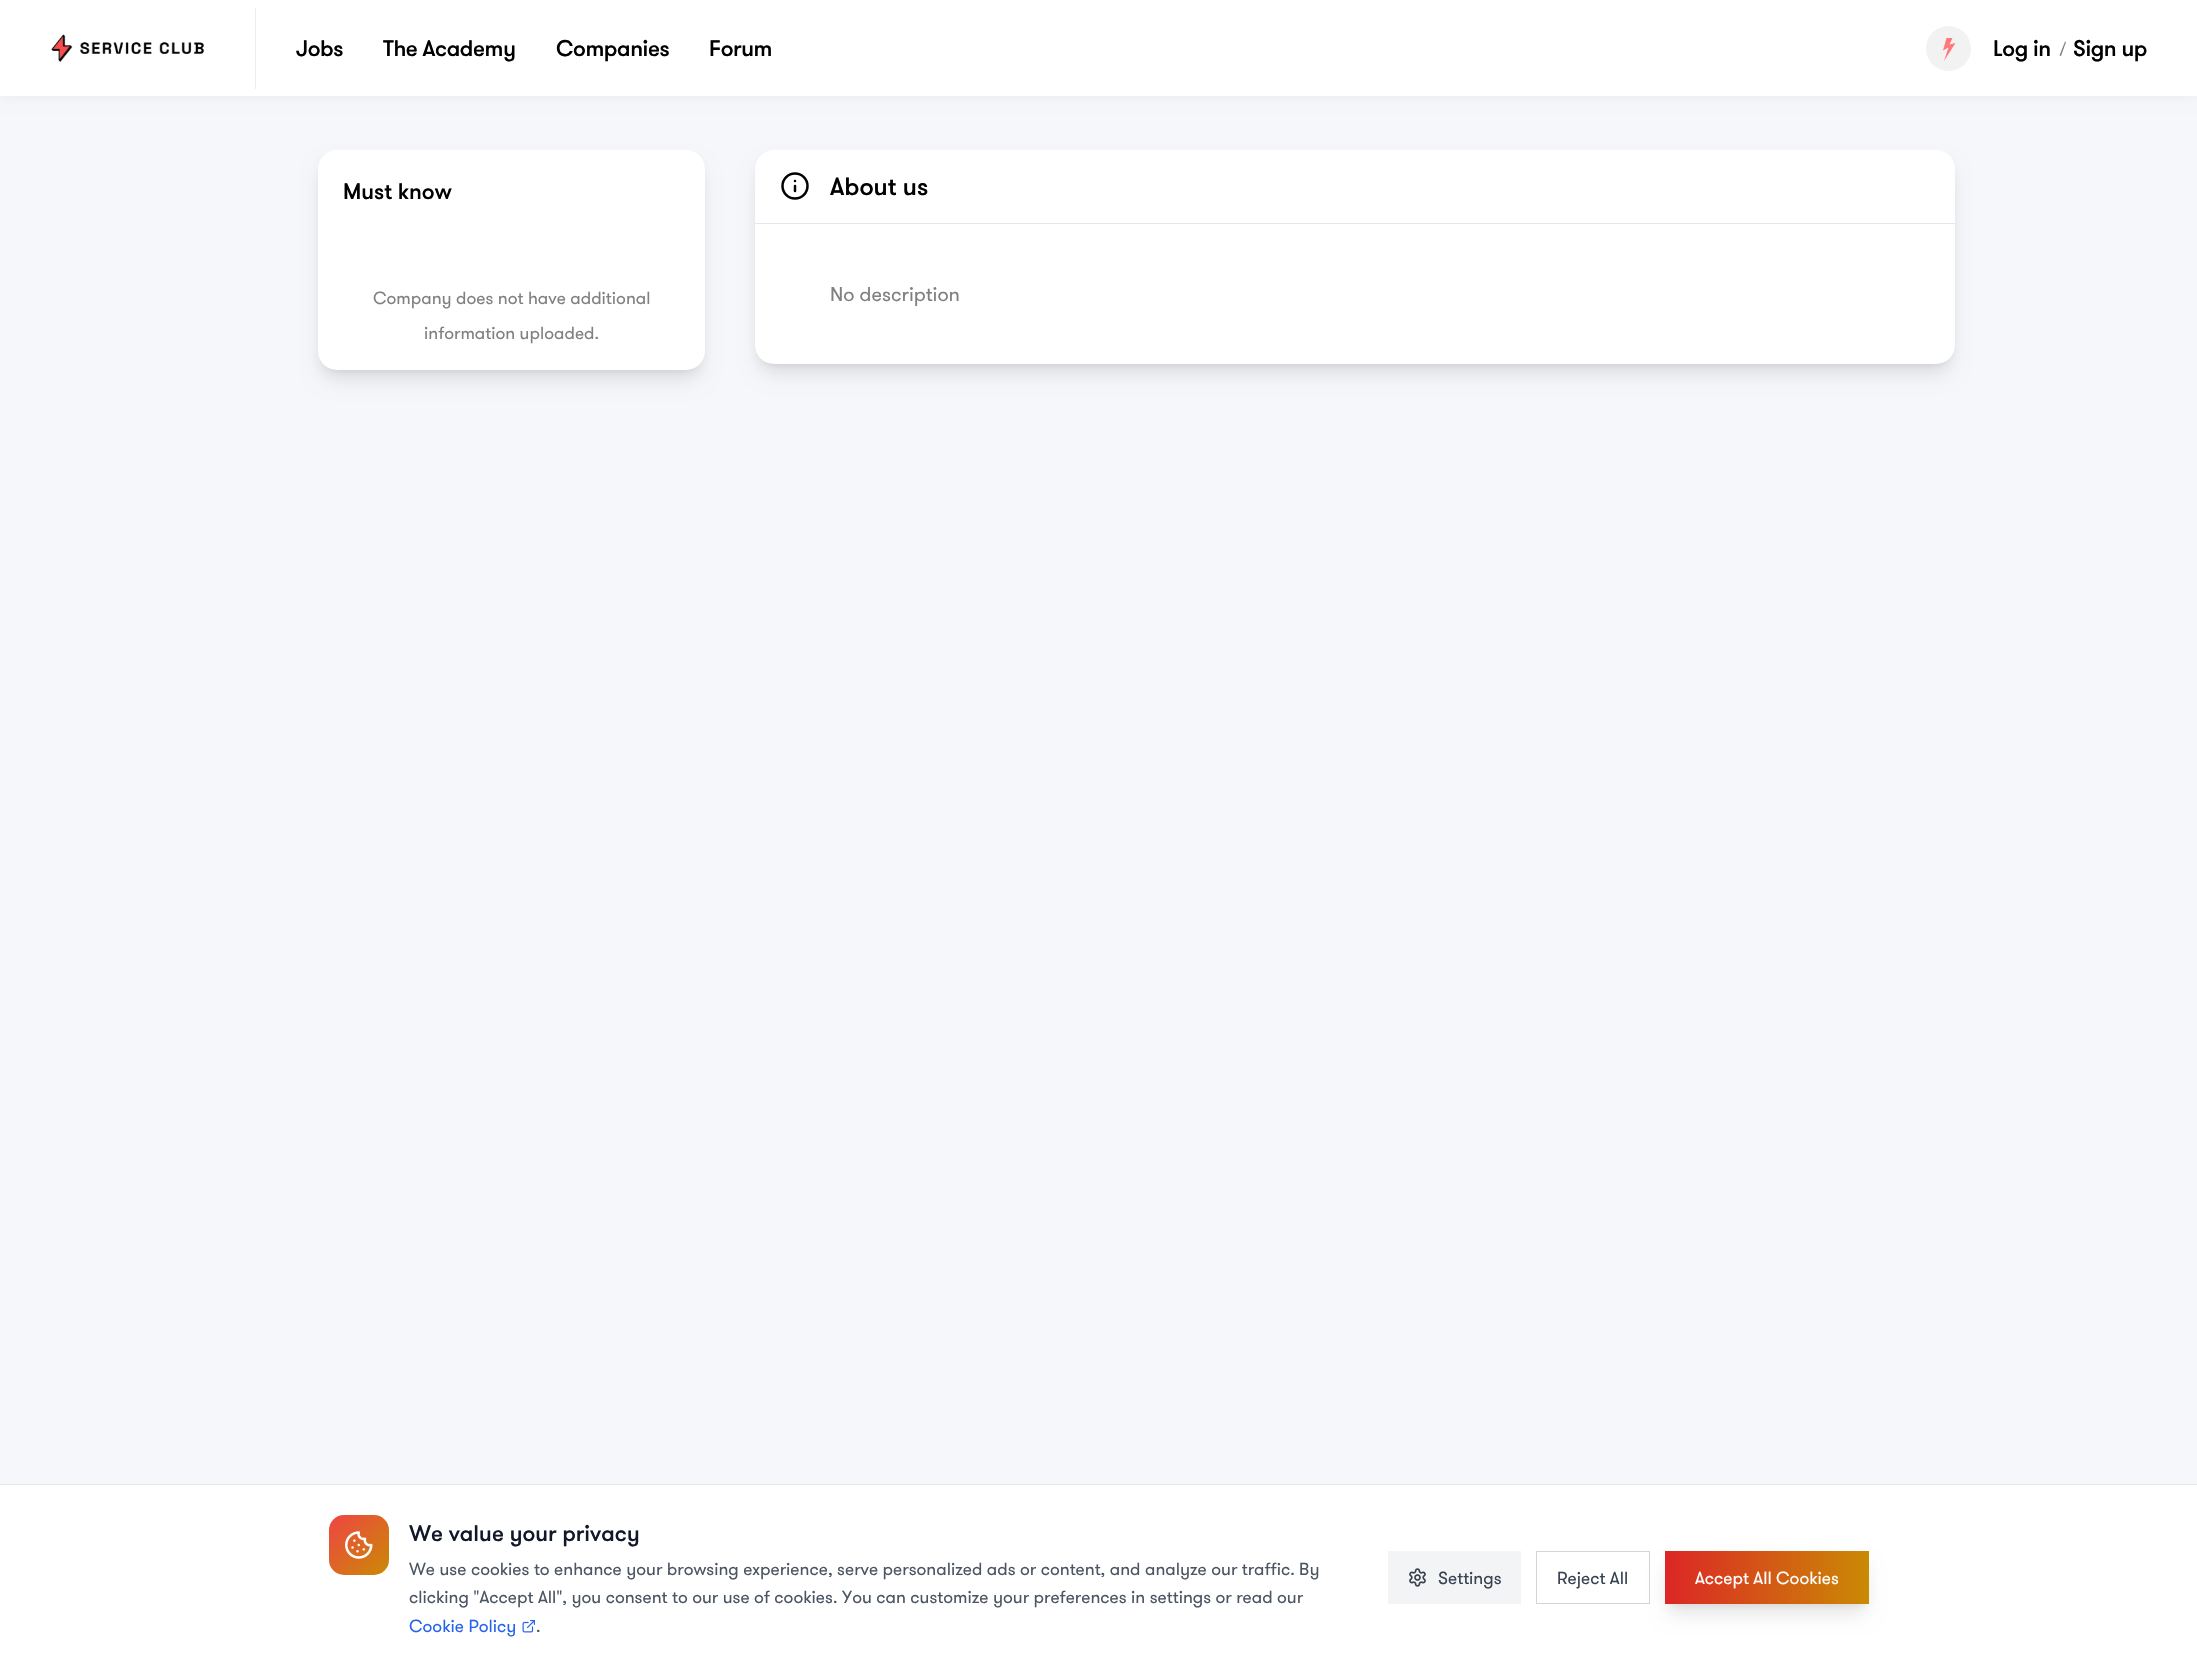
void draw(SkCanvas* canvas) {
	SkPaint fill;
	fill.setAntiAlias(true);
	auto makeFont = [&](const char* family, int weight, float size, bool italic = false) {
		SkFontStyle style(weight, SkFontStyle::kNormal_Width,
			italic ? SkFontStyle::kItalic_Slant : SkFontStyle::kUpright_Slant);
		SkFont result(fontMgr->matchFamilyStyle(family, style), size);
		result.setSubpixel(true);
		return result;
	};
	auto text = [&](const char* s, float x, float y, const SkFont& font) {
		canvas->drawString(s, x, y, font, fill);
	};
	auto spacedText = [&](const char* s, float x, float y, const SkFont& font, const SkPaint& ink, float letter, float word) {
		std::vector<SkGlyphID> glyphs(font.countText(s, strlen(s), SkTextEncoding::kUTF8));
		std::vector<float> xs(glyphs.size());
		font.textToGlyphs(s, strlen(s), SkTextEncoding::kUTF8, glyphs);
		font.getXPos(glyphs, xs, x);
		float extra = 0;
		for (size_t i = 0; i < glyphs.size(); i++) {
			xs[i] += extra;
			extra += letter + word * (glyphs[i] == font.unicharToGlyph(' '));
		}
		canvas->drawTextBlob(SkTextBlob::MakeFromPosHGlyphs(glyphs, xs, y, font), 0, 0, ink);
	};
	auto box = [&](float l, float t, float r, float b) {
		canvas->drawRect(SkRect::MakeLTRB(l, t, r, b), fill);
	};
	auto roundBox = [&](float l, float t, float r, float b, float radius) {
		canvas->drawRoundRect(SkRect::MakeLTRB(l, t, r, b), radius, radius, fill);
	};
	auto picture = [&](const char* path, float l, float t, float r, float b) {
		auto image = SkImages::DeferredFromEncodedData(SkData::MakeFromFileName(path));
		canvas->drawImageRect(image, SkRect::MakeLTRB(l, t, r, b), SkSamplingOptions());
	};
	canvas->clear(0xFFF5F7FA);
	fill.setColor(0x0D000000);
	fill.setMaskFilter(SkMaskFilter::MakeBlur(kNormal_SkBlurStyle, 6));
	canvas->drawRect(SkRect::MakeLTRB(0, 0, 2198, 96), fill);
	fill.setMaskFilter(nullptr);
	fill.setColor(0xFFFFFFFF);
	box(0, 0, 2197, 96);
	fill.setColor(0xFFEEEEEE);
	box(255, 8, 256, 89);
	picture("image0.png", 51, 34, 204, 62);
	fill.setColor(0xFFF2F2F2);
	canvas->drawCircle(1948.5f, 48.5f, 22.5f, fill);
	fill.setColor(0xFFFE7979);
	canvas->drawPath(SkPathBuilder().moveTo(1952.5f, 38).lineTo(1946.5f, 38).lineTo(1943, 50.5f).lineTo(1948.5f, 47.5f).lineTo(1944, 61).lineTo(1955.5f, 43).lineTo(1949.5f, 44.5f).close().detach(), fill);
	fill.setColor(0xFF808080);
	canvas->drawPath(SkPathBuilder().moveTo(2065, 41.5f).lineTo(2066, 42).lineTo(2061, 56).lineTo(2059.5f, 55.5f).close().detach(), fill);
	fill.setColor(0x1A000000);
	fill.setMaskFilter(SkMaskFilter::MakeBlur(kNormal_SkBlurStyle, 4));
	canvas->drawRoundRect(SkRect::MakeLTRB(323, 160, 700, 370), 14, 14, fill);
	fill.setMaskFilter(nullptr);
	fill.setMaskFilter(SkMaskFilter::MakeBlur(kNormal_SkBlurStyle, 9.5f));
	canvas->drawRoundRect(SkRect::MakeLTRB(321, 166, 701, 379), 15, 15, fill);
	fill.setMaskFilter(nullptr);
	fill.setColor(0xFFFFFFFF);
	roundBox(318, 150, 705, 370, 19);
	fill.setColor(0x1A000000);
	fill.setMaskFilter(SkMaskFilter::MakeBlur(kNormal_SkBlurStyle, 4));
	canvas->drawRoundRect(SkRect::MakeLTRB(760, 160, 1950, 364), 14, 14, fill);
	fill.setMaskFilter(nullptr);
	fill.setMaskFilter(SkMaskFilter::MakeBlur(kNormal_SkBlurStyle, 9.5f));
	canvas->drawRoundRect(SkRect::MakeLTRB(759, 166, 1951, 373), 15, 15, fill);
	fill.setMaskFilter(nullptr);
	fill.setColor(0xFFFFFFFF);
	roundBox(755, 150, 1955, 364, 19);
	fill.setStyle(SkPaint::kStroke_Style);
	fill.setStrokeWidth(2.5f);
	fill.setColor(0xFF000000);
	canvas->drawCircle(795, 186, 12.5f, fill);
	fill.setStrokeCap(SkPaint::kRound_Cap);
	fill.setStrokeJoin(SkPaint::kRound_Join);
	canvas->drawPath(SkPathBuilder().moveTo(795, 191).lineTo(795, 186).moveTo(795, 181).lineTo(795, 181).detach(), fill);
	fill.setStyle(SkPaint::kFill_Style);
	fill.setColor(0xFFE5E7EB);
	box(755, 223, 1955, 224);
	fill.setColor(0xFFFFFFFF);
	box(0, 1485, 2197, 1669);
	fill.setColor(0xFFE5E7EB);
	box(0, 1484, 2197, 1485);
	{
		const SkColor colors[] = {0xFFEF4444, 0xFFCA8A04};
		const float stops[] = {0, 1};
		const SkPoint ends[] = {{329, 1515}, {389, 1575}};
		fill.setShader(SkGradientShader::MakeLinear(ends, colors, stops, 2, SkTileMode::kClamp));
		fill.setAlpha(255);
	}
	roundBox(329, 1515, 389, 1575, 15);
	picture("image1.png", 345, 1531, 373, 1559);
	picture("image2.png", 522, 1620, 535, 1633);
	fill.setShader(nullptr);
	fill.setColor(0xFFF3F4F6);
	box(1388, 1551, 1521, 1604);
	picture("image3.png", 1409, 1568, 1426, 1587);
	fill.setStyle(SkPaint::kStroke_Style);
	fill.setStrokeWidth(1);
	fill.setStrokeCap(SkPaint::kButt_Cap);
	fill.setStrokeJoin(SkPaint::kMiter_Join);
	fill.setColor(0xFFD1D5DB);
	canvas->drawRect(SkRect::MakeLTRB(1536.5f, 1551.5f, 1649.5f, 1603.5f), fill);
	fill.setStyle(SkPaint::kFill_Style);
	fill.setColor(0x1A000000);
	fill.setMaskFilter(SkMaskFilter::MakeBlur(kNormal_SkBlurStyle, 4));
	canvas->drawRect(SkRect::MakeLTRB(1670, 1561, 1864, 1604), fill);
	fill.setMaskFilter(nullptr);
	fill.setMaskFilter(SkMaskFilter::MakeBlur(kNormal_SkBlurStyle, 9.5f));
	canvas->drawRect(SkRect::MakeLTRB(1669, 1568, 1865, 1613), fill);
	fill.setMaskFilter(nullptr);
	{
		const SkColor colors[] = {0xFFDC2626, 0xFFCA8A04};
		const float stops[] = {0, 1};
		const SkPoint ends[] = {{1665, 1578}, {1869, 1578}};
		fill.setShader(SkGradientShader::MakeLinear(ends, colors, stops, 2, SkTileMode::kClamp));
		fill.setAlpha(255);
	}
	box(1665, 1551, 1869, 1604);
	auto font1 = makeFont("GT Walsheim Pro", 500, 22.5f);
	fill.setShader(nullptr);
	fill.setColor(0xFF000000);
	spacedText("Jobs", 296, 56, font1, fill, -0.4f, 0);
	spacedText("The Academy", 383, 56, font1, fill, -0.4f, 0);
	spacedText("Companies", 556, 56, font1, fill, -0.4f, 0);
	spacedText("Forum", 709, 56, font1, fill, -0.4f, 0);
	spacedText("Log in", 1993, 56, font1, fill, -0.4f, 0);
	spacedText("Sign up", 2073, 56, font1, fill, -0.4f, 0);
	text("Must know", 343, 199, font1);
	auto font2 = makeFont("GT Walsheim Pro", 400, 17.5f);
	fill.setColor(0xFF808080);
	text("Company does not have additional", 373, 304, font2);
	text("information uploaded.", 424, 339, font2);
	auto font3 = makeFont("GT Walsheim Pro", 500, 25);
	fill.setColor(0xFF000000);
	text("About us", 830, 195, font3);
	auto font4 = makeFont("GT Walsheim Pro", 400, 20);
	fill.setColor(0xFF808080);
	text("No description", 830, 301, font4);
	fill.setColor(0xFF111827);
	text("We value your privacy", 409, 1541, font1);
	fill.setColor(0xFF4B5563);
	text("We use cookies to enhance your browsing experience, serve personalized ads or content, and analyze our traffic. By", 409, 1575, font2);
	text("clicking \"Accept All\", you consent to our use of cookies. You can customize your preferences in settings or read our", 409, 1603, font2);
	fill.setColor(0xFF2563EB);
	text("Cookie Policy", 409, 1632, font2);
	fill.setColor(0xFF4B5563);
	text(".", 536, 1632, font2);
	fill.setColor(0xFF374151);
	text("Settings", 1438, 1584, font2);
	text("Reject All", 1557, 1584, font2);
	fill.setColor(0xFFFFFFFF);
	text("Accept All Cookies", 1695, 1584, font2);
}
